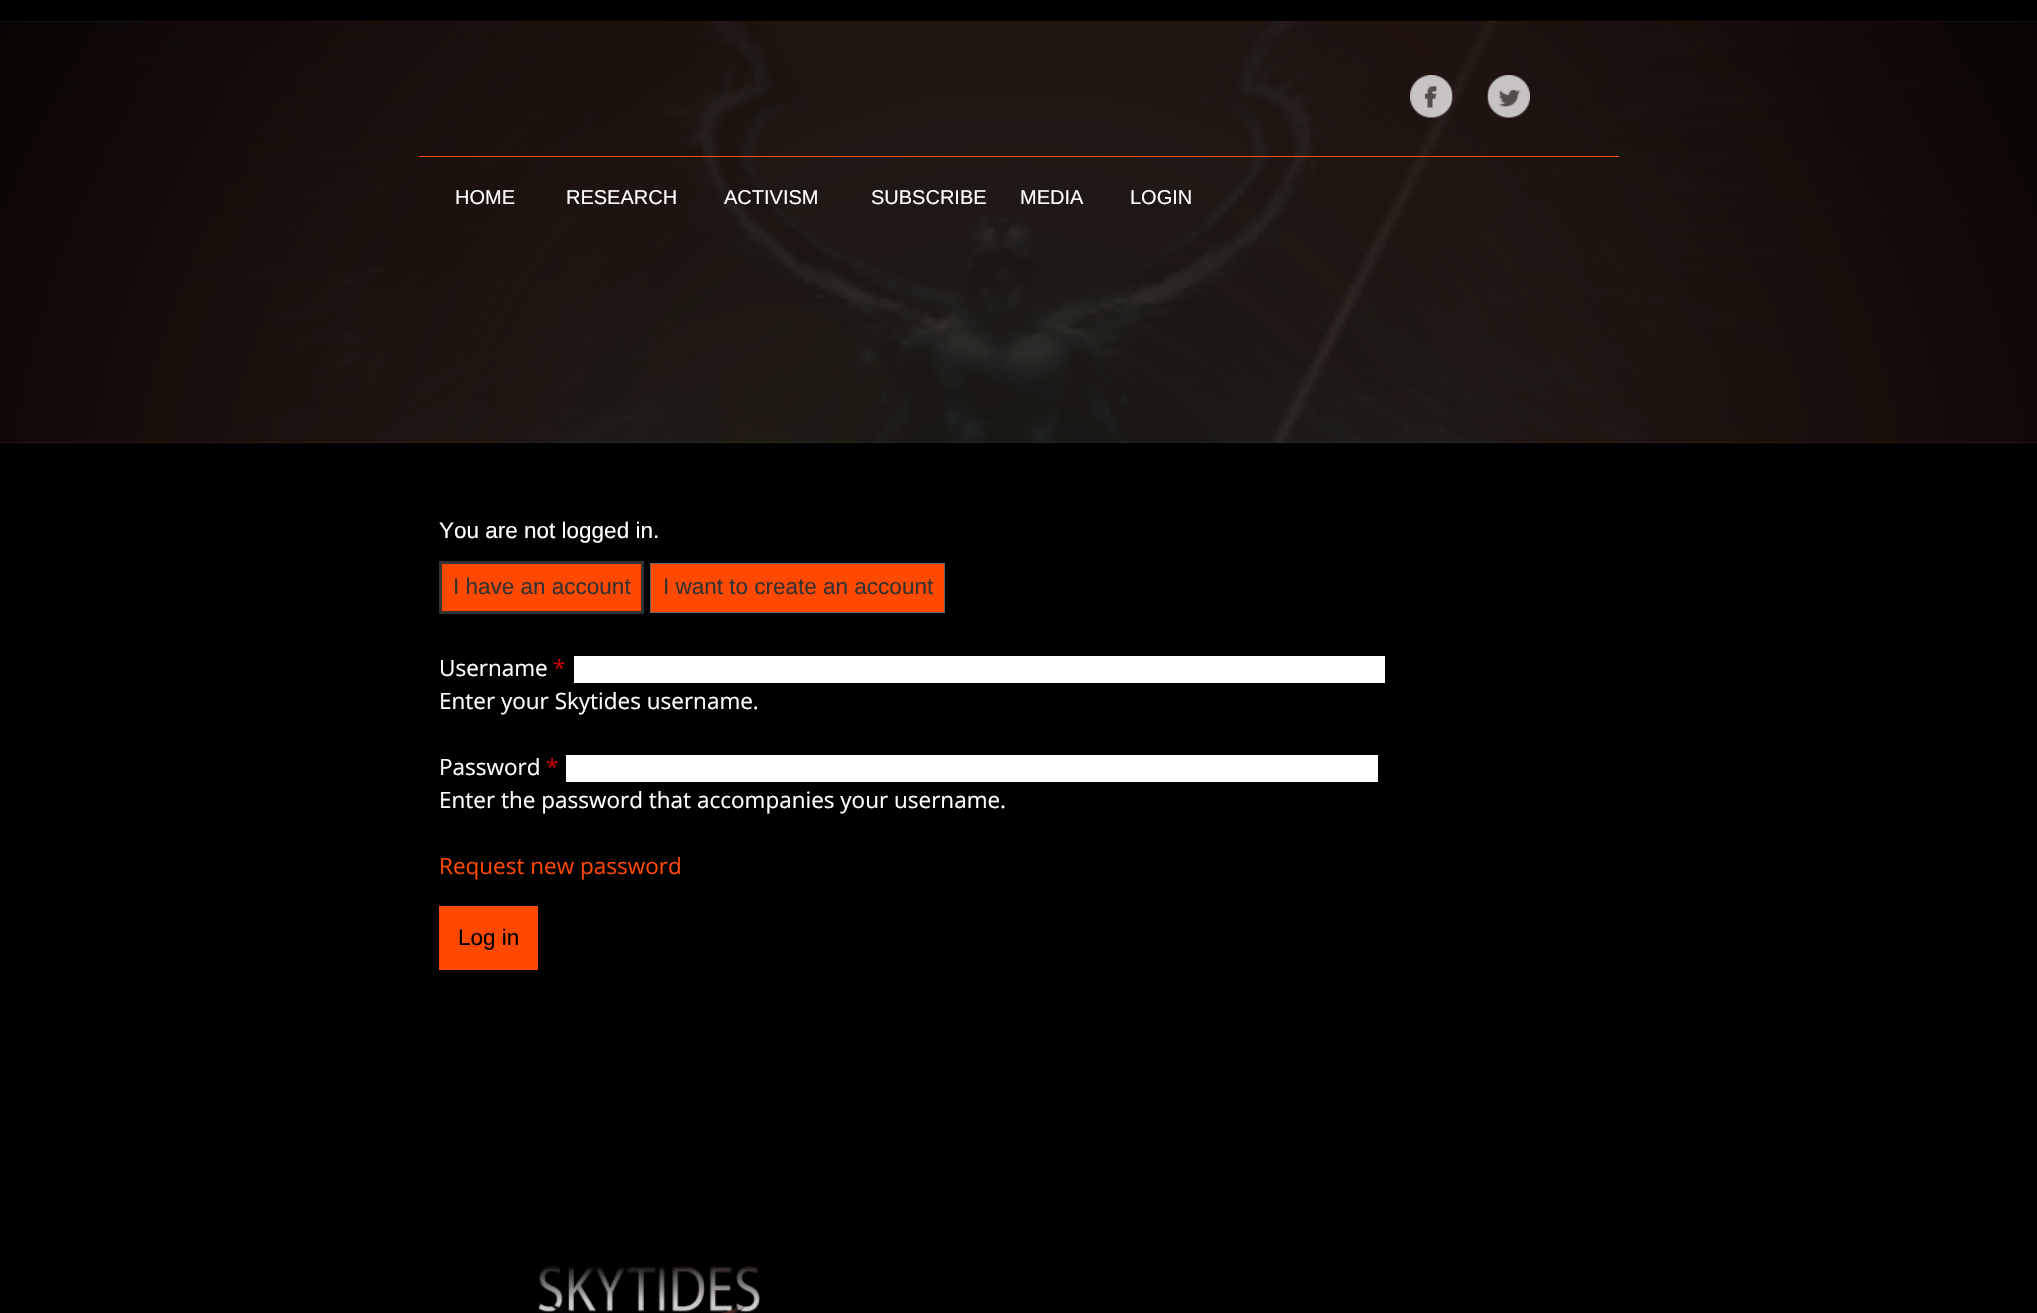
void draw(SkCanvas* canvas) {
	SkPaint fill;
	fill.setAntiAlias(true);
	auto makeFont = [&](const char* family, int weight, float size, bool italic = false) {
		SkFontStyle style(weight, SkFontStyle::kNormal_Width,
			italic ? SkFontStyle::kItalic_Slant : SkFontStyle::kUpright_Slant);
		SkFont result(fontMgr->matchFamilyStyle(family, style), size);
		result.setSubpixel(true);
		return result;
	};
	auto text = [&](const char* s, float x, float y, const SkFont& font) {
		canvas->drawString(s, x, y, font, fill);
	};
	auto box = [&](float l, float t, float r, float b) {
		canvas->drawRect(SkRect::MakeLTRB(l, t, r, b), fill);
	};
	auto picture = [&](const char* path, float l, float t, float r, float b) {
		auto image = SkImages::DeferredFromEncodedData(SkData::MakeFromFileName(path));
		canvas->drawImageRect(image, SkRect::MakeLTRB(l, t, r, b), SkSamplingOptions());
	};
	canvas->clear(0xFF000000);
	fill.setColor(0xFF2B2B2B);
	box(0, 21, 2037, 443);
	picture("image0.png", 31, 21, 1992, 443);
	picture("image3.png", 0, 21, 2037, 443);
	picture("image1.png", 1410, 75, 1453, 118);
	picture("image2.png", 1487, 75, 1530, 118);
	fill.setColor(0xFFFF4800);
	box(419, 156, 1619, 157);
	canvas->drawRect(SkRect::MakeLTRB(440.5f, 562.5f, 642.5f, 612.5f), fill);
	fill.setStyle(SkPaint::kStroke_Style);
	fill.setStrokeWidth(3);
	fill.setColor(0xFF333333);
	canvas->drawRect(SkRect::MakeLTRB(440.5f, 562.5f, 642.5f, 612.5f), fill);
	fill.setStyle(SkPaint::kFill_Style);
	fill.setColor(0xFFFF4800);
	canvas->drawRect(SkRect::MakeLTRB(650.5f, 563.5f, 944.5f, 612.5f), fill);
	fill.setStyle(SkPaint::kStroke_Style);
	fill.setStrokeWidth(1);
	fill.setColor(0xFF666666);
	canvas->drawRect(SkRect::MakeLTRB(650.5f, 563.5f, 944.5f, 612.5f), fill);
	fill.setStyle(SkPaint::kFill_Style);
	fill.setColor(0xFFFFFFFF);
	box(574, 656, 1385, 683);
	box(566, 755, 1378, 782);
	fill.setColor(0xFFFF4800);
	box(439, 906, 538, 970);
	picture("image4.png", 538, 1266, 760, 1313);
	auto font1 = makeFont("Liberation Sans", 400, 20);
	fill.setColor(0xFFFFFFFF);
	text("HOME", 455, 204, font1);
	text("RESEARCH", 566, 204, font1);
	text("ACTIVISM", 724, 204, font1);
	text("SUBSCRIBE", 871, 204, font1);
	text("MEDIA", 1020, 204, font1);
	text("LOGIN", 1130, 204, font1);
	auto font2 = makeFont("Liberation Sans", 400, 22.5f);
	text("You are not logged in.", 439, 538, font2);
	fill.setColor(0xFF333333);
	text("I have an account", 453, 594, font2);
	text("I want to create an account", 663, 594, font2);
	auto font3 = makeFont("Open Sans", 400, 22.5f);
	fill.setColor(0xFFFFFFFF);
	text("Username", 439, 676, font3);
	fill.setColor(0xFFCC0000);
	text("*", 553, 676, font3);
	fill.setColor(0xFFFFFFFF);
	text("Enter your Skytides username.", 439, 709, font3);
	text("Password", 439, 775, font3);
	fill.setColor(0xFFCC0000);
	text("*", 546, 775, font3);
	fill.setColor(0xFFFFFFFF);
	text("Enter the password that accompanies your username.", 439, 808, font3);
	fill.setColor(0xFFFF4800);
	text("Request new password", 439, 874, font3);
	fill.setColor(0xFF000000);
	text("Log in", 458, 945, font2);
}
